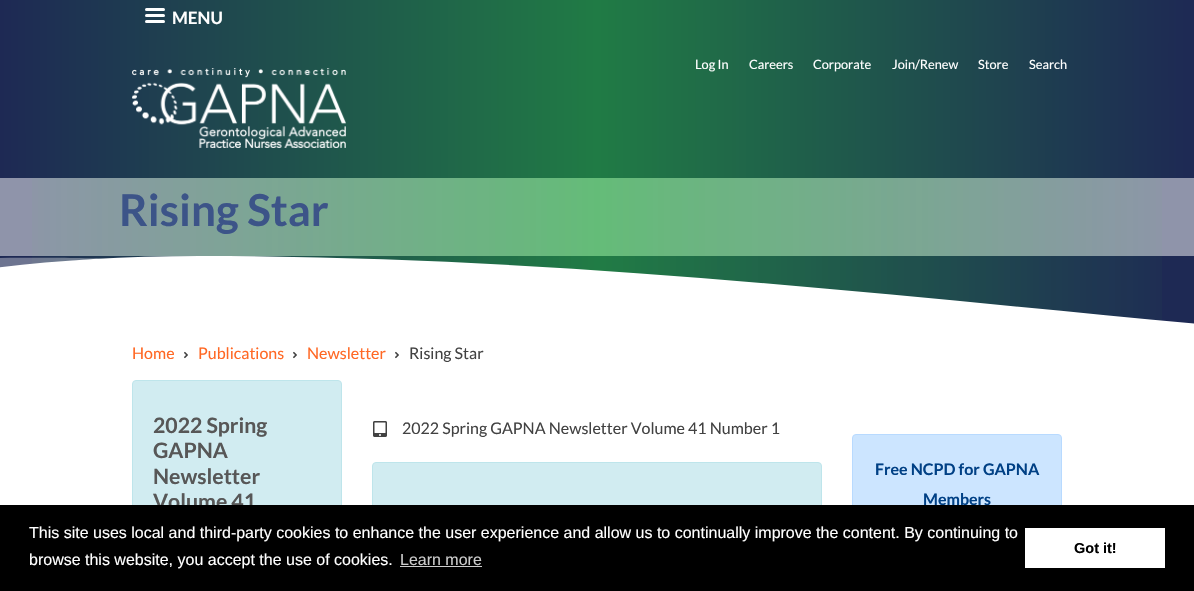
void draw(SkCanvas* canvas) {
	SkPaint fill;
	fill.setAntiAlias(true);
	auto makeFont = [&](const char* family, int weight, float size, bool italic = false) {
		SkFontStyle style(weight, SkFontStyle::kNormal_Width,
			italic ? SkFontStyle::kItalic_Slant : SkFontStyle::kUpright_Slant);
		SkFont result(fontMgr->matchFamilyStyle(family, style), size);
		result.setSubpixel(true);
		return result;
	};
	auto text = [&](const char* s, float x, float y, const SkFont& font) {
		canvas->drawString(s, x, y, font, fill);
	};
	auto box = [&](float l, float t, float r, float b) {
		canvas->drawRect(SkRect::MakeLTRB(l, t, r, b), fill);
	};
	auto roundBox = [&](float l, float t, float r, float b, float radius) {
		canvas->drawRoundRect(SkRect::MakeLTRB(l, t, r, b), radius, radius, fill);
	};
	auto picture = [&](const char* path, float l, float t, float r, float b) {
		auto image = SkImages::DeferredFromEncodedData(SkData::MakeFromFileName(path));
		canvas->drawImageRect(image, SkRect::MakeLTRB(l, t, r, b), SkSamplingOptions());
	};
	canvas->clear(0xFFFFFFFF);
	{
		const SkColor colors[] = {0xFF1E2954, 0xFF207B45, 0xFF1E2954};
		const float stops[] = {0, 0.5f, 1};
		const SkPoint ends[] = {{0, 22}, {1194, 21}};
		fill.setShader(SkGradientShader::MakeLinear(ends, colors, stops, 3, SkTileMode::kClamp));
		fill.setAlpha(255);
	}
	box(0, 0, 1194, 43);
	fill.setShader(nullptr);
	fill.setColor(0xFFFFFFFF);
	roundBox(145, 8, 165, 11, 1.5f);
	roundBox(145, 14, 165, 17, 1.5f);
	roundBox(145, 20, 165, 23, 1.5f);
	{
		const SkColor colors[] = {0xFF1E2954, 0xFF207B45, 0xFF1E2954};
		const float stops[] = {0, 0.5f, 1};
		const SkPoint ends[] = {{0, 111}, {1194, 110}};
		fill.setShader(SkGradientShader::MakeLinear(ends, colors, stops, 3, SkTileMode::kClamp));
		fill.setAlpha(255);
	}
	box(0, 43, 1194, 178);
	picture("image0.png", 132, 68, 346, 148);
	fill.setShader(nullptr);
	fill.setColor(0xFF1E2954);
	box(0, 256, 1194, 324);
	fill.setColor(0xFF8F94AA);
	box(0, 178, 1194, 256);
	{
		const SkColor colors[] = {0x0024F72E, 0x6624F72E, 0x0024F72E};
		const float stops[] = {0, 0.5f, 1};
		const SkPoint ends[] = {{0, 267}, {1194, 267}};
		fill.setShader(SkGradientShader::MakeLinear(ends, colors, stops, 3, SkTileMode::kClamp));
		fill.setAlpha(255);
	}
	box(32, 178, 1162, 321);
	picture("image1.png", 0, 256, 1194, 356);
	picture("image2.png", 184, 351, 188, 359);
	picture("image2.png", 293, 351, 297, 359);
	picture("image2.png", 395, 351, 399, 359);
	fill.setShader(nullptr);
	fill.setColor(0xFFD1ECF1);
	canvas->drawRoundRect(SkRect::MakeLTRB(132.5f, 380.5f, 341.5f, 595.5f), 3.5f, 3.5f, fill);
	fill.setStyle(SkPaint::kStroke_Style);
	fill.setStrokeWidth(1);
	fill.setColor(0xFFBEE5EB);
	canvas->drawRoundRect(SkRect::MakeLTRB(132.5f, 380.5f, 341.5f, 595.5f), 3.5f, 3.5f, fill);
	picture("image3.png", 373, 421, 387, 437);
	fill.setStyle(SkPaint::kFill_Style);
	fill.setColor(0xFFD1ECF1);
	canvas->drawRoundRect(SkRect::MakeLTRB(372.5f, 462.5f, 821.5f, 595.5f), 3.5f, 3.5f, fill);
	fill.setStyle(SkPaint::kStroke_Style);
	fill.setColor(0xFFBEE5EB);
	canvas->drawRoundRect(SkRect::MakeLTRB(372.5f, 462.5f, 821.5f, 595.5f), 3.5f, 3.5f, fill);
	fill.setStyle(SkPaint::kFill_Style);
	fill.setColor(0xFFCCE5FF);
	canvas->drawRoundRect(SkRect::MakeLTRB(852.5f, 434.5f, 1061.5f, 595.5f), 3.5f, 3.5f, fill);
	fill.setStyle(SkPaint::kStroke_Style);
	fill.setColor(0xFFB8DAFF);
	canvas->drawRoundRect(SkRect::MakeLTRB(852.5f, 434.5f, 1061.5f, 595.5f), 3.5f, 3.5f, fill);
	auto font1 = makeFont("Lato", 700, 17);
	fill.setStyle(SkPaint::kFill_Style);
	fill.setColor(0xFFFFFFFF);
	text("MENU", 172, 24, font1);
	auto font2 = makeFont("Lato", 400, 12.75f);
	text("Log In", 695, 69, font2);
	text("Careers", 749, 69, font2);
	text("Corporate", 813, 69, font2);
	text("Join/Renew", 892, 69, font2);
	text("Store", 978, 69, font2);
	text("Search", 1029, 69, font2);
	auto font3 = makeFont("Lato", 700, 44);
	fill.setColor(0xFF3C5488);
	text("Rising Star", 119, 226, font3);
	auto font4 = makeFont("Lato", 400, 16);
	fill.setColor(0xFFFF6824);
	text("Home", 132, 359, font4);
	text("Publications", 198, 359, font4);
	text("Newsletter", 307, 359, font4);
	fill.setColor(0xFF424242);
	text("Rising Star", 409, 359, font4);
	auto font5 = makeFont("Lato", 700, 21.25f);
	fill.setColor(0xFF575757);
	text("2022 Spring", 153, 433, font5);
	text("GAPNA", 153, 458, font5);
	text("Newsletter", 153, 484, font5);
	text("Volume 41", 153, 509, font5);
	fill.setColor(0xFF424242);
	text("2022 Spring GAPNA Newsletter Volume 41 Number 1", 402, 434, font4);
	auto font6 = makeFont("Lato", 700, 16);
	fill.setColor(0xFF004085);
	text("Free NCPD for GAPNA", 875, 475, font6);
	text("Members", 923, 505, font6);
	fill.setColor(0xFF000000);
	box(0, 505, 1194, 591);
	auto font7 = makeFont("Liberation Sans", 400, 16);
	fill.setColor(0xFFFFFFFF);
	text("This site uses local and third-party cookies to enhance the user experience and allow us to continually improve the content. By continuing to", 29, 538, font7);
	text("browse this website, you accept the use of cookies.", 29, 565, font7);
	fill.setColor(0xFFCCCCCC);
	text("Learn more", 400, 565, font7);
	box(400, 566, 482, 567);
	fill.setColor(0xFFFFFFFF);
	box(1025, 528, 1165, 568);
	auto font8 = makeFont("Liberation Sans", 700, 14.5f);
	fill.setColor(0xFF000000);
	text("Got it!", 1074, 553, font8);
}
